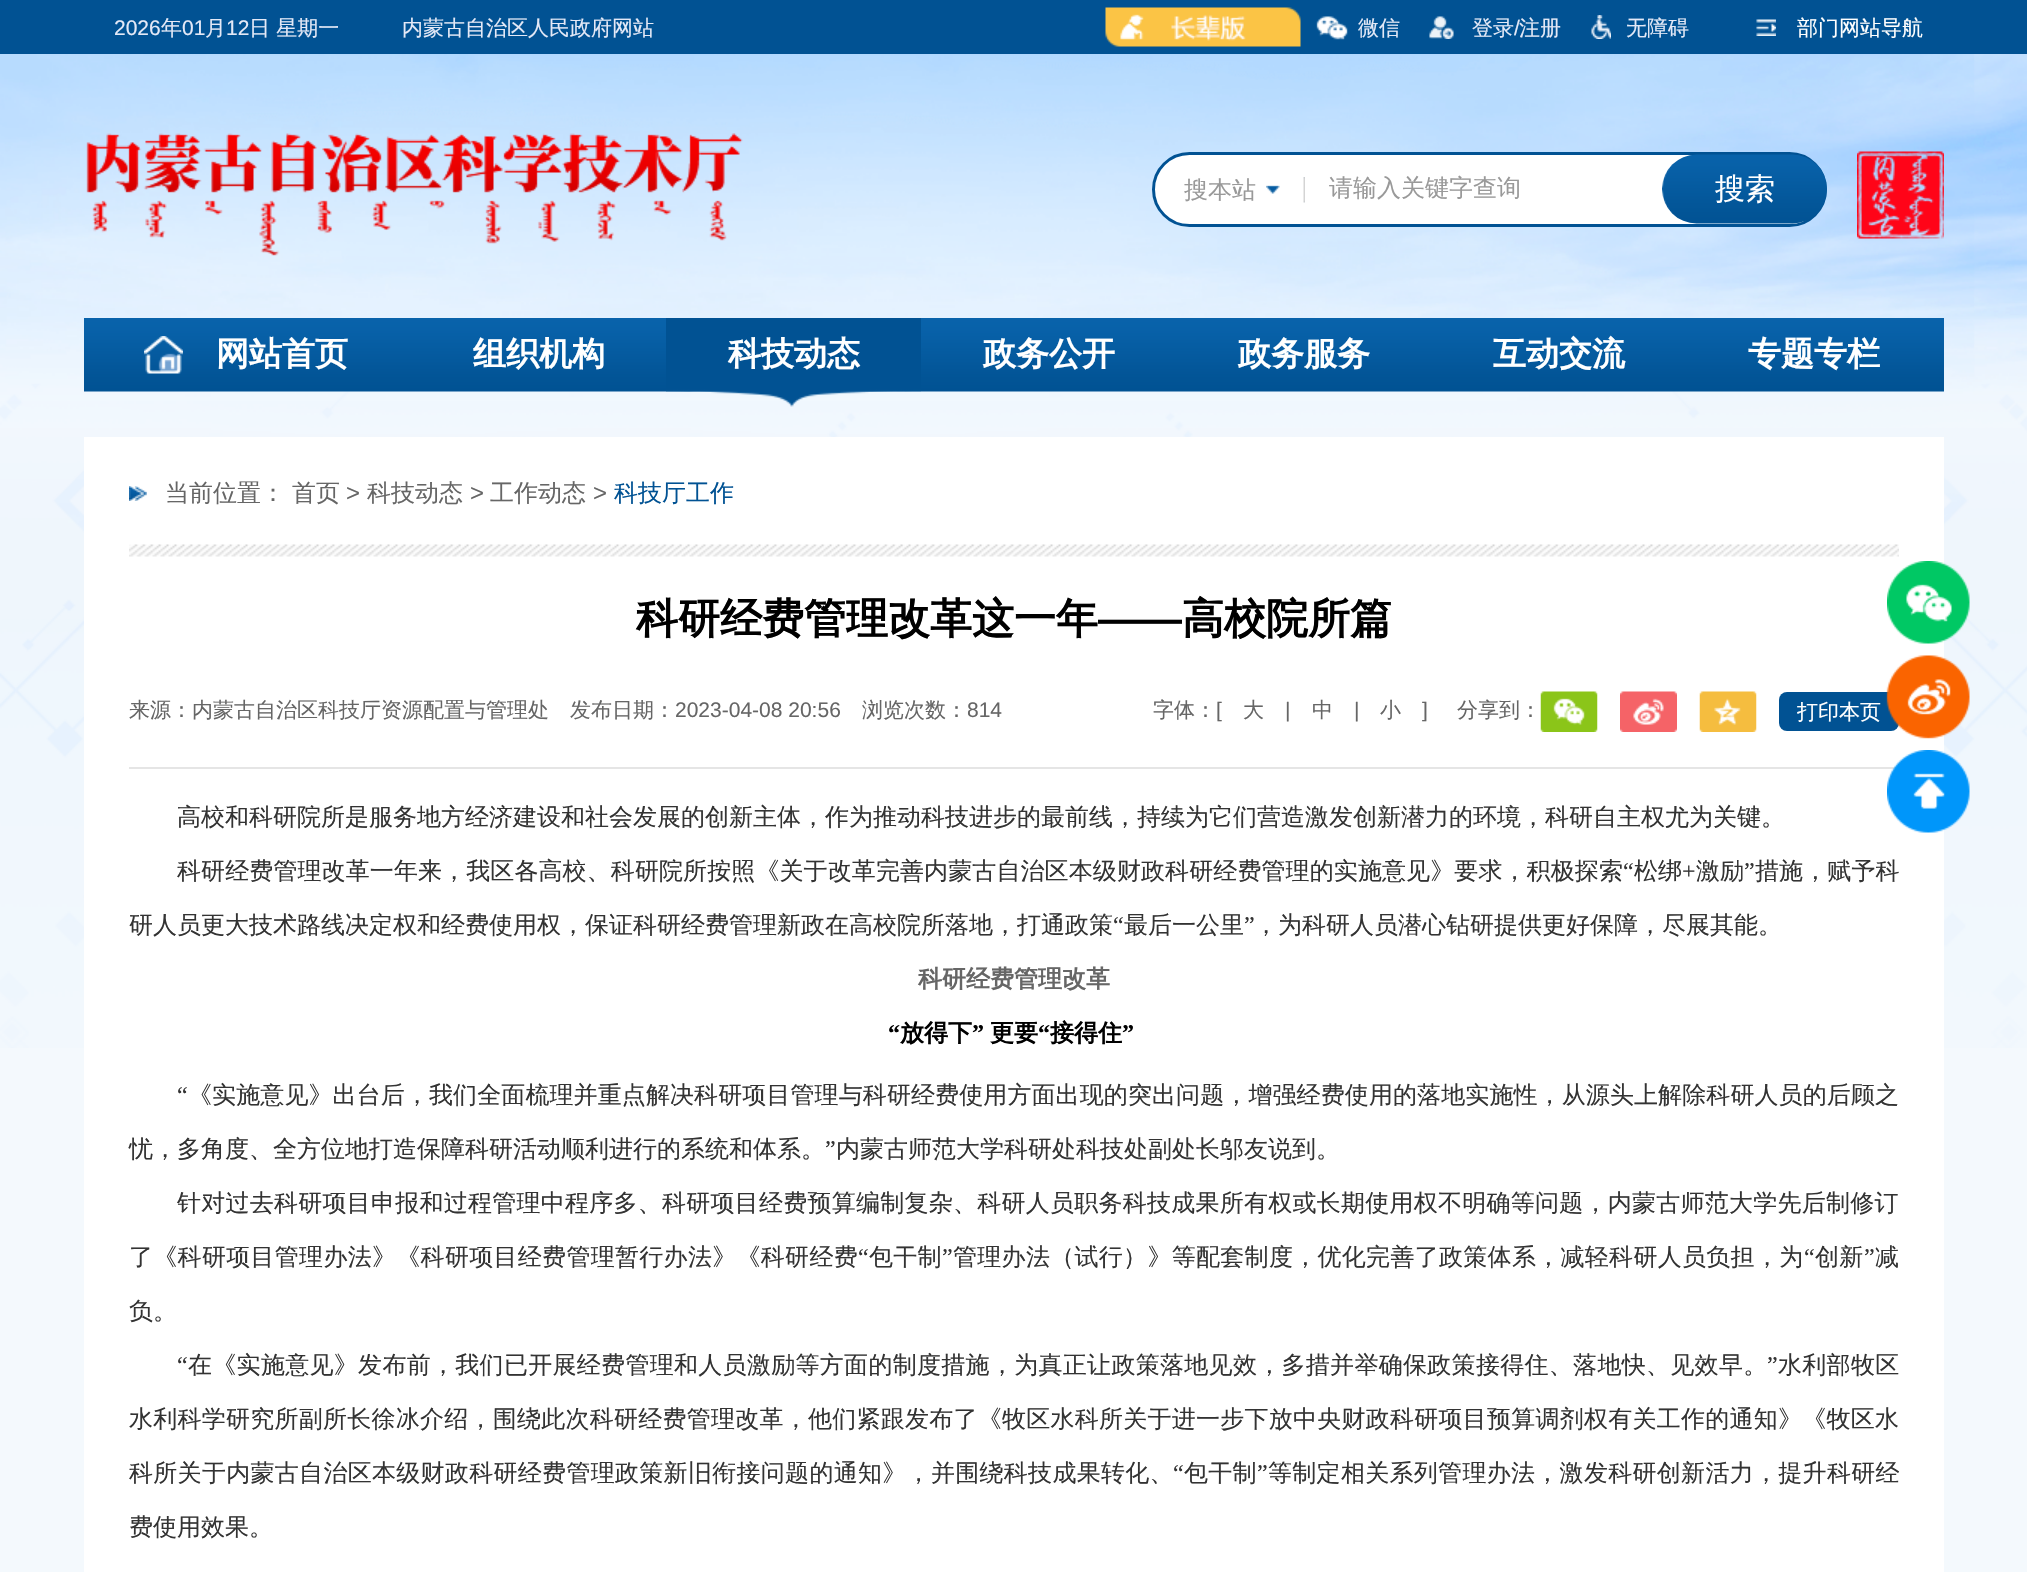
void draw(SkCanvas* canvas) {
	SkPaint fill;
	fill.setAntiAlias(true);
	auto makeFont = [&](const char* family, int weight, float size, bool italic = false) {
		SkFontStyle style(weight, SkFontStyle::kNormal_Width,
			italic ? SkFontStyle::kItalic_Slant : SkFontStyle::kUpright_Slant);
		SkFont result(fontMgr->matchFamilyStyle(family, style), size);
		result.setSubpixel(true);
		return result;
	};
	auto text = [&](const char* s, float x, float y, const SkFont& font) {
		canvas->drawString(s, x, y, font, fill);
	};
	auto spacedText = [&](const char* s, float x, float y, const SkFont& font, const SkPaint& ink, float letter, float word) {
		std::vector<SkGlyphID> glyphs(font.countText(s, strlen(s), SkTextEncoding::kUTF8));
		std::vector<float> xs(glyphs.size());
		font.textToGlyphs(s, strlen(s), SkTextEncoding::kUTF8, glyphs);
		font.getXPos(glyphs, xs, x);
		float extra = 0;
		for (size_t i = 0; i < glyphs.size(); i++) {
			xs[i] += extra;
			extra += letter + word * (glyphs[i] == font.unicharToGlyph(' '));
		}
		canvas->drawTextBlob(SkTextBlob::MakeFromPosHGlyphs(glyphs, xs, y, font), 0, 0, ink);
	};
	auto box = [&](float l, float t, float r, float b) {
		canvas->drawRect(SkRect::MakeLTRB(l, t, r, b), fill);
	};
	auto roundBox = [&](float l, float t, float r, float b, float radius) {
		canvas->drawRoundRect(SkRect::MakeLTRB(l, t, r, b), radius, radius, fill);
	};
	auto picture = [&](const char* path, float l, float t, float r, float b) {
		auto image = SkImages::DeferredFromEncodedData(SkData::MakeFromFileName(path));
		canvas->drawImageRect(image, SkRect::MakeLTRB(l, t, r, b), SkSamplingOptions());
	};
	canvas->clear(0xFFF4F9FD);
	picture("image0.png", 0, 54, 2027, 1048);
	fill.setColor(0xFF015293);
	box(0, 0, 2027, 54);
	picture("image1.png", 1105, 7, 1301, 47);
	picture("image2.png", 1316, 16, 1348, 40);
	picture("image3.png", 1429, 16, 1454, 39);
	picture("image4.png", 1591, 15, 1611, 39);
	picture("image5.png", 1756, 19, 1776, 36);
	picture("image6.png", 86, 133, 743, 256);
	fill.setColor(0xFFFFFFFF);
	canvas->drawRoundRect(SkRect::MakeLTRB(1153.5f, 153.5f, 1825.5f, 225.5f), 36, 36, fill);
	fill.setStyle(SkPaint::kStroke_Style);
	fill.setStrokeWidth(3);
	fill.setColor(0xFF015293);
	canvas->drawRoundRect(SkRect::MakeLTRB(1153.5f, 153.5f, 1825.5f, 225.5f), 36, 36, fill);
	picture("image7.png", 1266, 177, 1305, 203);
	picture("image8.png", 1662, 154, 1827, 224);
	picture("image9.png", 1857, 151, 1944, 239);
	picture("image10.png", 84, 318, 1944, 392);
	picture("image11.png", 144, 336, 183, 374);
	picture("image12.png", 666, 318, 921, 407);
	fill.setStyle(SkPaint::kFill_Style);
	fill.setColor(0xFFFFFFFF);
	box(84, 437, 1944, 1572);
	picture("image13.png", 129, 544, 1899, 557);
	picture("image14.png", 129, 486, 147, 501);
	fill.setColor(0xFFE5E5E5);
	box(129, 767, 1899, 769);
	picture("image15.png", 1540, 691, 1598, 732);
	picture("image16.png", 1620, 691, 1677, 732);
	picture("image17.png", 1699, 691, 1757, 732);
	fill.setColor(0xFF015293);
	roundBox(1779, 692, 1899, 731, 8);
	picture("image18.png", 1887, 561, 1970, 644);
	picture("image19.png", 1886, 655, 1970, 739);
	picture("image20.png", 1887, 750, 1970, 833);
	auto font1 = makeFont("Liberation Sans", 400, 21);
	fill.setColor(0xFFE4E9F7);
	text("2026", 114, 35, font1);
	auto font2 = makeFont("WenQuanYi Zen Hei", 500, 21);
	text("年", 161, 35, font2);
	text("01", 182, 35, font1);
	text("月", 205, 35, font2);
	text("12", 226, 35, font1);
	text("日 星期一", 249, 35, font2);
	text("内蒙古自治区人民政府网站", 402, 35, font2);
	text("微信", 1358, 35, font2);
	text("登录", 1472, 35, font2);
	text("/", 1514, 35, font1);
	text("注册", 1519, 35, font2);
	text("无障碍", 1626, 35, font2);
	fill.setColor(0xFFFFFFFF);
	text("部门网站导航", 1797, 35, font2);
	auto font3 = makeFont("WenQuanYi Zen Hei", 500, 24);
	fill.setColor(0xFF999999);
	text("搜本站", 1184, 198, font3);
	text("请输入关键字查询", 1329, 196, font3);
	auto font4 = makeFont("WenQuanYi Zen Hei", 500, 30);
	fill.setColor(0xFFFFFFFF);
	text("搜索", 1715, 199, font4);
	auto font5 = makeFont("WenQuanYi Zen Hei", 700, 33);
	text("网站首页", 216, 365, font5);
	text("组织机构", 473, 365, font5);
	text("科技动态", 728, 365, font5);
	text("政务公开", 983, 365, font5);
	text("政务服务", 1238, 365, font5);
	text("互动交流", 1493, 365, font5);
	text("专题专栏", 1748, 365, font5);
	fill.setColor(0xFF666666);
	text("当前位置：", 165, 501, font3);
	text("首页", 292, 501, font3);
	auto font6 = makeFont("Liberation Sans", 400, 24);
	text(">", 346, 501, font6);
	text("科技动态", 367, 501, font3);
	text(">", 470, 501, font6);
	text("工作动态", 490, 501, font3);
	text(">", 593, 501, font6);
	fill.setColor(0xFF015293);
	text("科技厅工作", 614, 501, font3);
	auto font7 = makeFont("WenQuanYi Zen Hei", 700, 42);
	fill.setColor(0xFF000000);
	text("科研经费管理改革这一年", 636, 633, font7);
	auto font8 = makeFont("Liberation Sans", 700, 42);
	text("——", 1098, 633, font8);
	text("高校院所篇", 1182, 633, font7);
	fill.setColor(0xFF666666);
	text("来源：内蒙古自治区科技厅资源配置与管理处", 129, 717, font2);
	text("发布日期：", 570, 717, font2);
	text("2023-04-08 20:56", 675, 717, font1);
	text("浏览次数：", 862, 717, font2);
	text("814", 967, 717, font1);
	text("字体：", 1153, 717, font2);
	text("[", 1216, 717, font1);
	text("大", 1243, 717, font2);
	text("|", 1285, 717, font1);
	text("中", 1312, 717, font2);
	text("|", 1354, 717, font1);
	text("小", 1380, 717, font2);
	text("]", 1422, 717, font1);
	text("分享到：", 1457, 717, font2);
	fill.setColor(0xFFFFFFFF);
	text("打印本页", 1797, 719, font2);
	fill.setColor(0xFF333333);
	text("高校和科研院所是服务地方经济建设和社会发展的创新主体，作为推动科技进步的最前线，持续为它们营造激发创新潜力的环境，科研自主权尤为关键。", 177, 825, font3);
	spacedText("科研经费管理改革一年来，我区各高校、科研院所按照《关于改革完善内蒙古自治区本级财政科研经费管理的实施意见》要求，积极探索", 177, 879, font3, fill, 0.1f, 0);
	auto font9 = makeFont("Liberation Serif", 400, 24);
	spacedText("“", 1623, 879, font9, fill, 0.1f, 0);
	spacedText("松绑", 1634, 879, font3, fill, 0.1f, 0);
	spacedText("+", 1682, 879, font9, fill, 0.1f, 0);
	spacedText("激励", 1696, 879, font3, fill, 0.1f, 0);
	spacedText("”", 1744, 879, font9, fill, 0.1f, 0);
	spacedText("措施，赋予科", 1755, 879, font3, fill, 0.1f, 0);
	text("研人员更大技术路线决定权和经费使用权，保证科研经费管理新政在高校院所落地，打通政策", 129, 933, font3);
	text("“", 1113, 933, font9);
	text("最后一公里", 1124, 933, font3);
	text("”", 1244, 933, font9);
	text("，为科研人员潜心钻研提供更好保障，尽展其能。", 1254, 933, font3);
	auto font10 = makeFont("WenQuanYi Zen Hei", 700, 24);
	fill.setColor(0xFF666666);
	text("科研经费管理改革", 918, 987, font10);
	auto font11 = makeFont("Liberation Serif", 700, 24);
	fill.setColor(0xFF000000);
	text("“", 888, 1041, font11);
	text("放得下", 900, 1041, font10);
	text("”", 972, 1041, font11);
	text("更要", 990, 1041, font10);
	text("“", 1038, 1041, font11);
	text("接得住", 1050, 1041, font10);
	text("”", 1122, 1041, font11);
	fill.setColor(0xFF333333);
	spacedText("“", 177, 1103, font9, fill, 0.1f, 0);
	spacedText("《实施意见》出台后，我们全面梳理并重点解决科研项目管理与科研经费使用方面出现的突出问题，增强经费使用的落地实施性，从源头上解除科研人员的后顾之", 188, 1103, font3, fill, 0.1f, 0);
	text("忧，多角度、全方位地打造保障科研活动顺利进行的系统和体系。", 129, 1157, font3);
	text("”", 825, 1157, font9);
	text("内蒙古师范大学科研处科技处副处长邬友说到。", 836, 1157, font3);
	spacedText("针对过去科研项目申报和过程管理中程序多、科研项目经费预算编制复杂、科研人员职务科技成果所有权或长期使用权不明确等问题，内蒙古师范大学先后制修订", 177, 1211, font3, fill, 0.25f, 0);
	spacedText("了《科研项目管理办法》《科研项目经费管理暂行办法》《科研经费", 129, 1265, font3, fill, 0.3f, 0);
	spacedText("“", 858, 1265, font9, fill, 0.3f, 0);
	spacedText("包干制", 869, 1265, font3, fill, 0.3f, 0);
	spacedText("”", 942, 1265, font9, fill, 0.3f, 0);
	spacedText("管理办法（试行）》等配套制度，优化完善了政策体系，减轻科研人员负担，为", 953, 1265, font3, fill, 0.3f, 0);
	spacedText("“", 1804, 1265, font9, fill, 0.3f, 0);
	spacedText("创新", 1815, 1265, font3, fill, 0.3f, 0);
	spacedText("”", 1864, 1265, font9, fill, 0.3f, 0);
	spacedText("减", 1875, 1265, font3, fill, 0.3f, 0);
	text("负。", 129, 1319, font3);
	spacedText("“", 177, 1373, font9, fill, 0.3f, 0);
	spacedText("在《实施意见》发布前，我们已开展经费管理和人员激励等方面的制度措施，为真正让政策落地见效，多措并举确保政策接得住、落地快、见效早。", 188, 1373, font3, fill, 0.3f, 0);
	spacedText("”", 1767, 1373, font9, fill, 0.3f, 0);
	spacedText("水利部牧区", 1778, 1373, font3, fill, 0.3f, 0);
	spacedText("水利科学研究所副所长徐冰介绍，围绕此次科研经费管理改革，他们紧跟发布了《牧区水科所关于进一步下放中央财政科研项目预算调剂权有关工作的通知》《牧区水", 129, 1427, font3, fill, 0.25f, 0);
	spacedText("科所关于内蒙古自治区本级财政科研经费管理政策新旧衔接问题的通知》，并围绕科技成果转化、", 129, 1481, font3, fill, 0.3f, 0);
	spacedText("“", 1173, 1481, font9, fill, 0.3f, 0);
	spacedText("包干制", 1184, 1481, font3, fill, 0.3f, 0);
	spacedText("”", 1257, 1481, font9, fill, 0.3f, 0);
	spacedText("等制定相关系列管理办法，激发科研创新活力，提升科研经", 1268, 1481, font3, fill, 0.3f, 0);
	text("费使用效果。", 129, 1535, font3);
}
